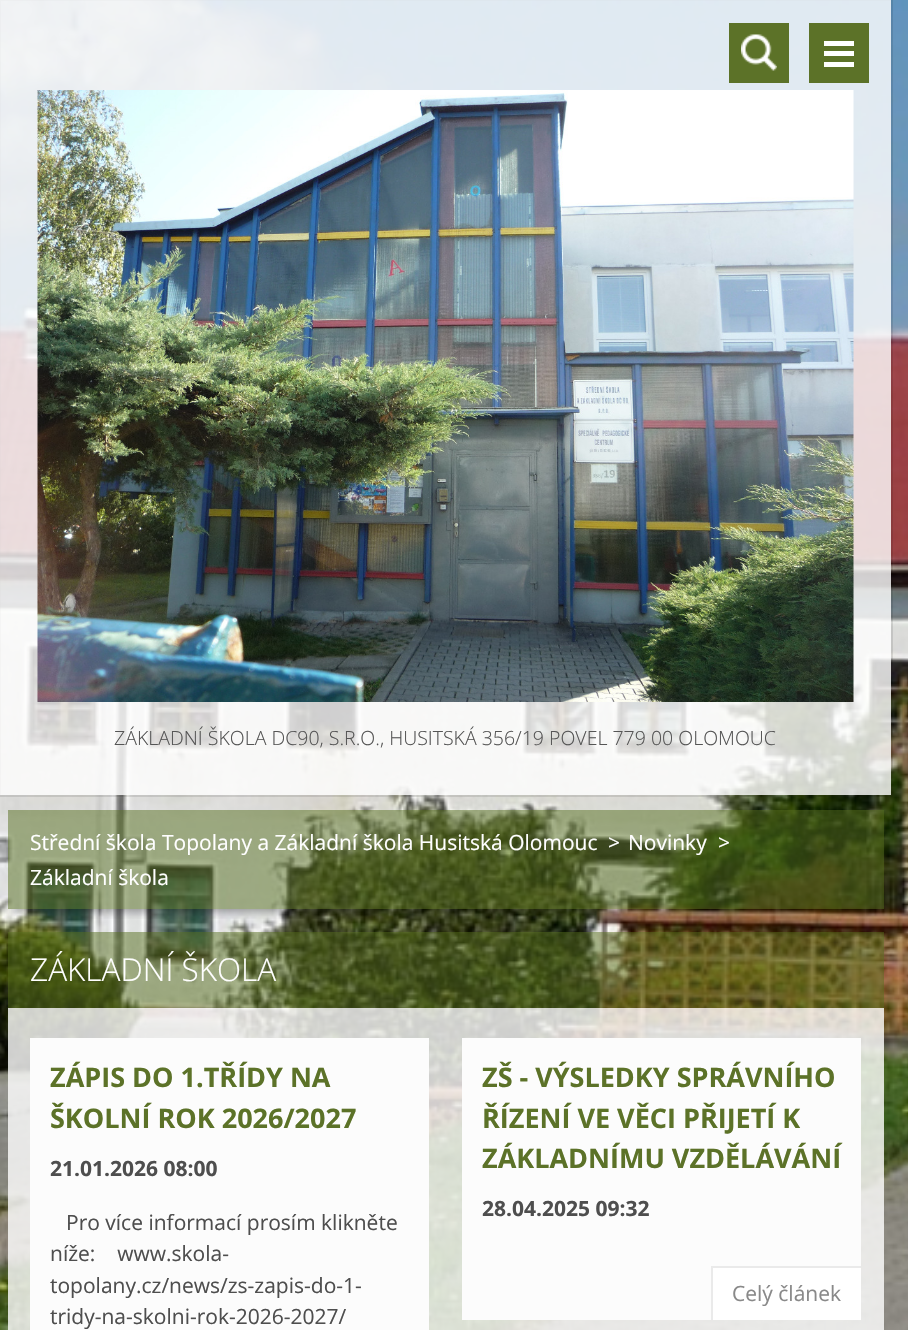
void draw(SkCanvas* canvas) {
	SkPaint fill;
	fill.setAntiAlias(true);
	auto makeFont = [&](const char* family, int weight, float size, bool italic = false) {
		SkFontStyle style(weight, SkFontStyle::kNormal_Width,
			italic ? SkFontStyle::kItalic_Slant : SkFontStyle::kUpright_Slant);
		SkFont result(fontMgr->matchFamilyStyle(family, style), size);
		result.setSubpixel(true);
		return result;
	};
	auto text = [&](const char* s, float x, float y, const SkFont& font) {
		canvas->drawString(s, x, y, font, fill);
	};
	auto box = [&](float l, float t, float r, float b) {
		canvas->drawRect(SkRect::MakeLTRB(l, t, r, b), fill);
	};
	auto picture = [&](const char* path, float l, float t, float r, float b) {
		auto image = SkImages::DeferredFromEncodedData(SkData::MakeFromFileName(path));
		canvas->drawImageRect(image, SkRect::MakeLTRB(l, t, r, b), SkSamplingOptions());
	};
	canvas->clear(0xFFFFFFFF);
	picture("image0.png", 0, 0, 908, 1330);
	fill.setStyle(SkPaint::kStroke_Style);
	fill.setStrokeWidth(2);
	fill.setColor(0x1A000000);
	canvas->drawRect(SkRect::MakeLTRB(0, 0, 892, 796), fill);
	fill.setStyle(SkPaint::kFill_Style);
	fill.setColor(0xCCFFFFFF);
	box(0, 0, 891, 720);
	picture("image1.png", 37, 90, 854, 702);
	fill.setColor(0xFF5C7228);
	box(729, 23, 789, 83);
	picture("image2.png", 741, 34, 777, 71);
	box(809, 23, 869, 83);
	fill.setColor(0xFFFFFFFF);
	box(824, 41, 854, 46);
	box(824, 51, 854, 56);
	box(824, 62, 854, 67);
	fill.setColor(0xCCFFFFFF);
	box(0, 720, 891, 795);
	canvas->save();
	canvas->clipRect(SkRect::MakeLTRB(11, 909, 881, 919));
	fill.setColor(0x59000000);
	fill.setMaskFilter(SkMaskFilter::MakeBlur(kNormal_SkBlurStyle, 4.5f));
	canvas->drawRect(SkRect::MakeLTRB(17, 831, 875, 912), fill);
	fill.setMaskFilter(nullptr);
	canvas->restore();
	fill.setColor(0x80566E1E);
	box(8, 810, 884, 909);
	box(8, 932, 884, 1008);
	fill.setColor(0xCCFFFFFF);
	box(8, 1008, 884, 1330);
	fill.setColor(0xFFFCFCFC);
	box(30, 1038, 429, 1330);
	box(462, 1038, 861, 1320);
	fill.setColor(0xFFFFFFFF);
	box(713, 1268, 861, 1320);
	fill.setColor(0xFFEAEAEA);
	box(711, 1266, 861, 1268);
	box(711, 1266, 713, 1320);
	auto font1 = makeFont("Open Sans", 300, 19.5f);
	fill.setColor(0xFF555555);
	text("ZÁKLADNÍ ŠKOLA DC90, S.R.O., HUSITSKÁ 356/19 POVEL 779 00 OLOMOUC", 114, 745, font1);
	auto font2 = makeFont("Open Sans", 400, 21);
	fill.setColor(0xFFFFFFFF);
	text("Střední škola Topolany a Základní škola Husitská Olomouc", 30, 850, font2);
	text(">", 608, 850, font2);
	text("Novinky", 628, 850, font2);
	text(">", 718, 850, font2);
	text("Základní škola", 30, 885, font2);
	auto font3 = makeFont("Open Sans", 300, 31.5f);
	text("ZÁKLADNÍ ŠKOLA", 30, 981, font3);
	auto font4 = makeFont("Open Sans", 700, 27);
	fill.setColor(0xFF5C7228);
	text("ZÁPIS DO 1.TŘÍDY NA", 50, 1087, font4);
	text("ŠKOLNÍ ROK 2026/2027", 50, 1128, font4);
	auto font5 = makeFont("Open Sans", 700, 21);
	fill.setColor(0xFF4E4E4E);
	text("21.01.2026 08:00", 50, 1176, font5);
	text("Pro více informací prosím klikněte", 66, 1230, font2);
	text("níže:    www.skola-", 50, 1261, font2);
	text("topolany.cz/news/zs-zapis-do-1-", 50, 1293, font2);
	text("tridy-na-skolni-rok-2026-2027/", 50, 1324, font2);
	fill.setColor(0xFF5C7228);
	text("ZŠ - VÝSLEDKY SPRÁVNÍHO", 482, 1087, font4);
	text("ŘÍZENÍ VE VĚCI PŘIJETÍ K", 482, 1128, font4);
	text("ZÁKLADNÍMU VZDĚLÁVÁNÍ", 482, 1168, font4);
	fill.setColor(0xFF4E4E4E);
	text("28.04.2025 09:32", 482, 1216, font5);
	fill.setColor(0xFF898989);
	text("Celý článek", 732, 1301, font2);
}
